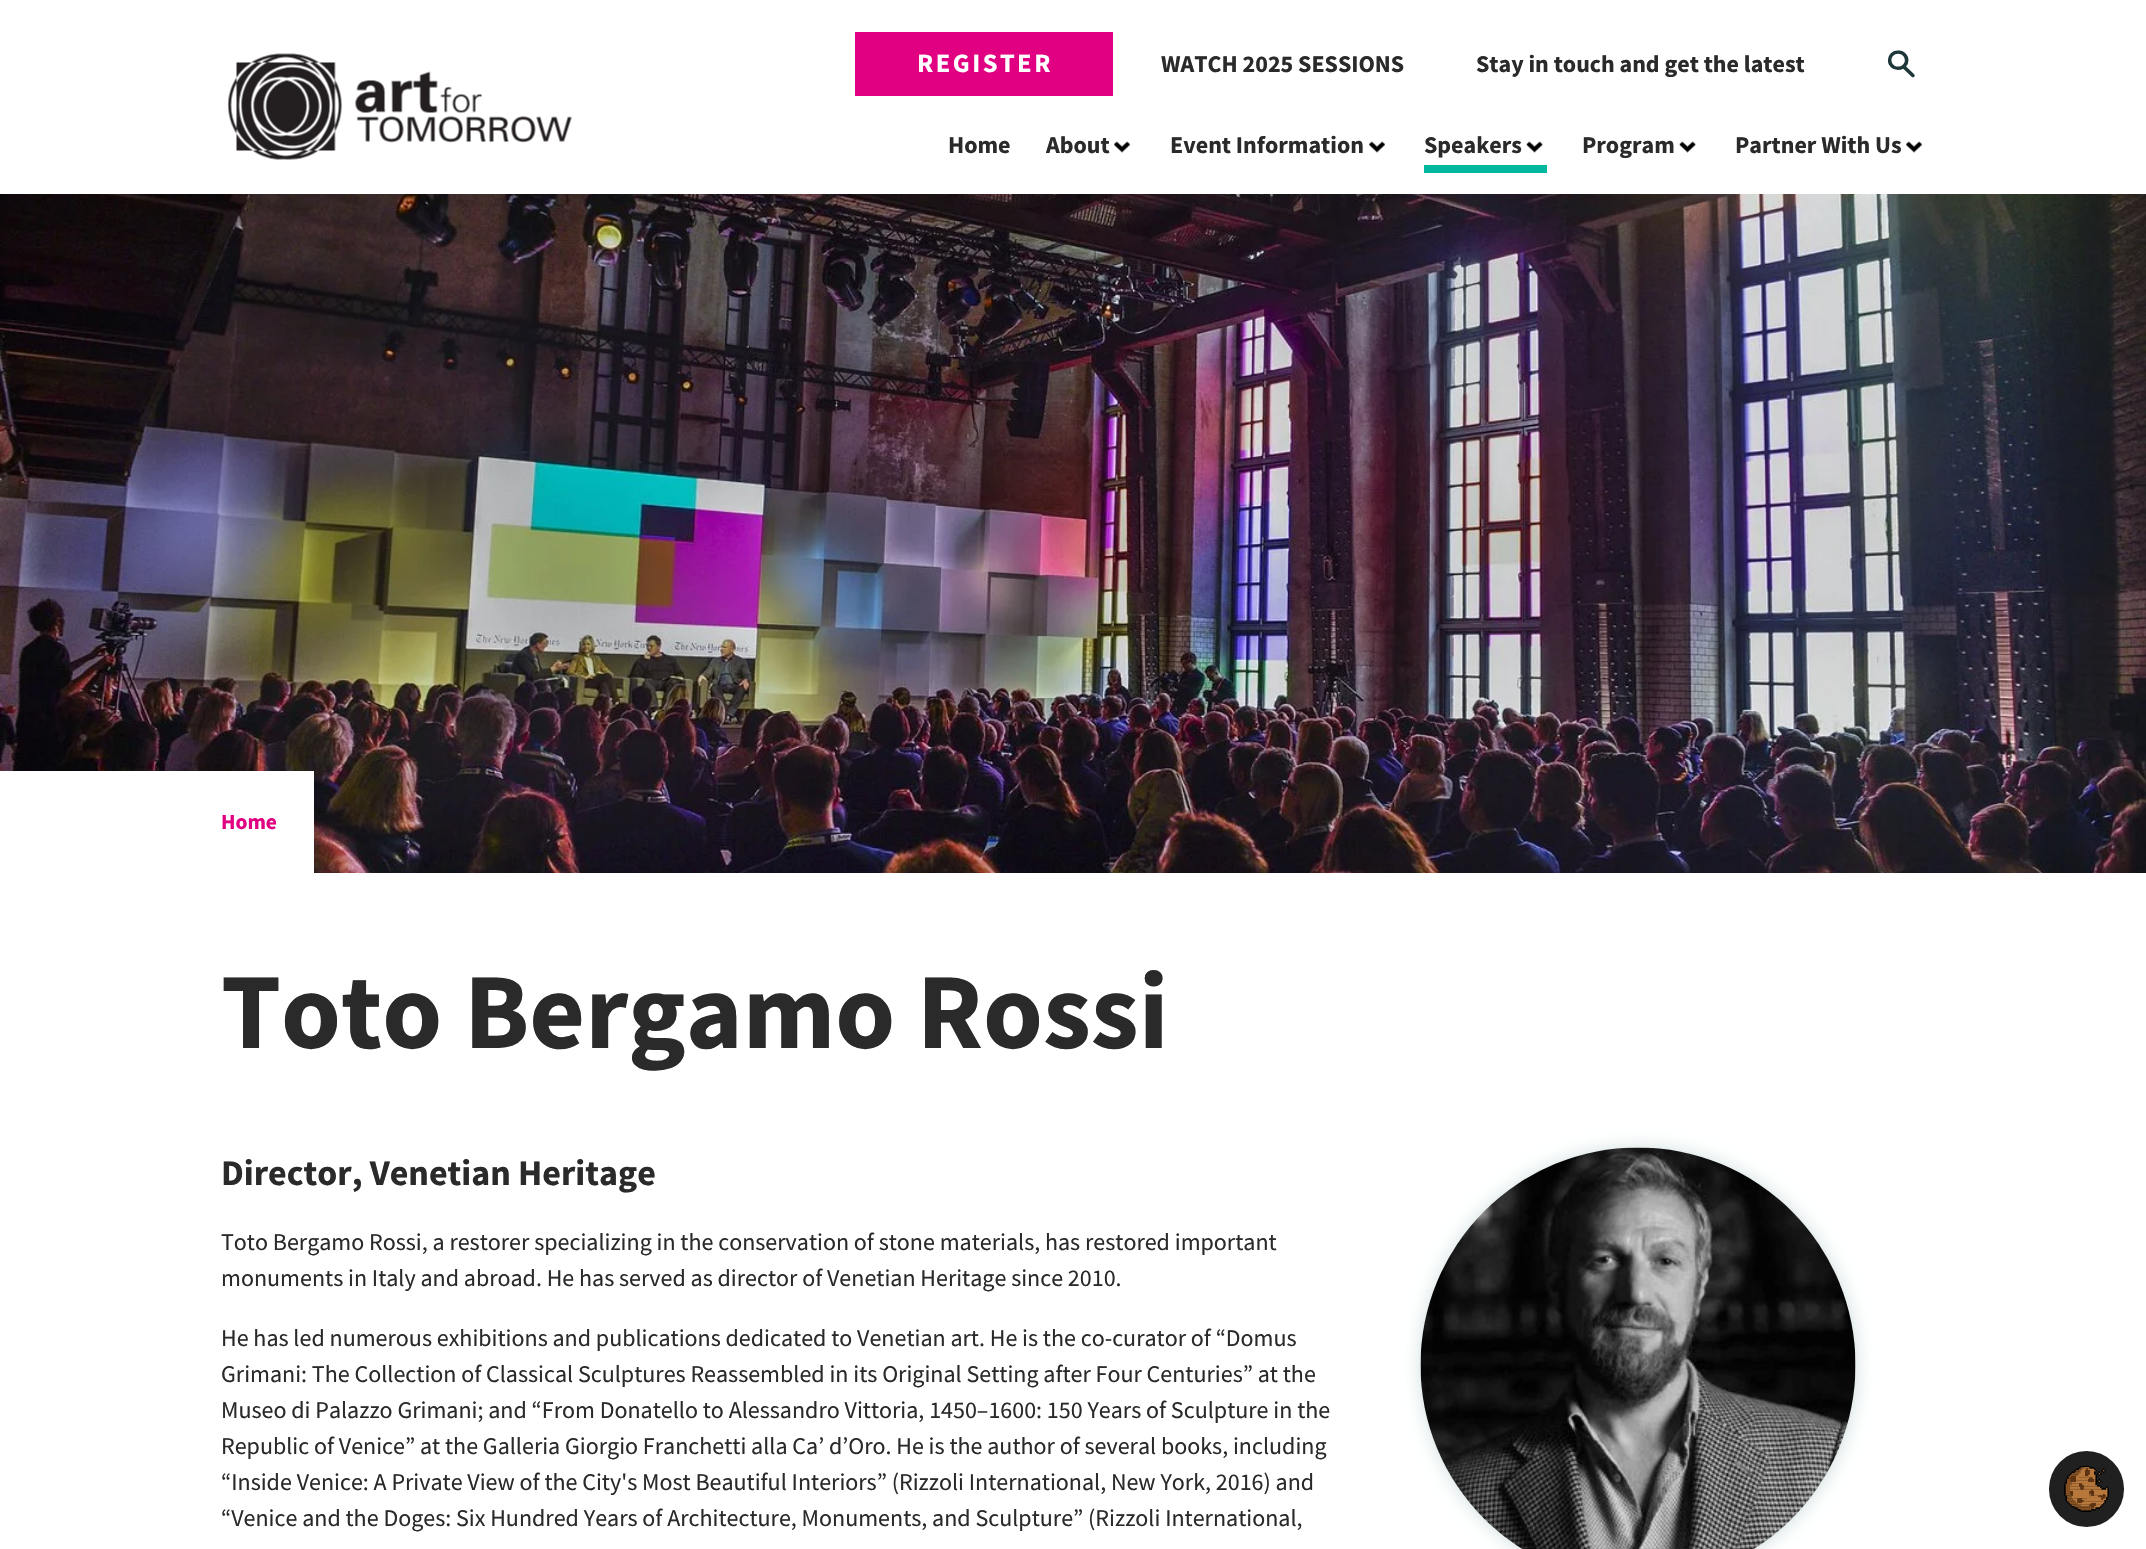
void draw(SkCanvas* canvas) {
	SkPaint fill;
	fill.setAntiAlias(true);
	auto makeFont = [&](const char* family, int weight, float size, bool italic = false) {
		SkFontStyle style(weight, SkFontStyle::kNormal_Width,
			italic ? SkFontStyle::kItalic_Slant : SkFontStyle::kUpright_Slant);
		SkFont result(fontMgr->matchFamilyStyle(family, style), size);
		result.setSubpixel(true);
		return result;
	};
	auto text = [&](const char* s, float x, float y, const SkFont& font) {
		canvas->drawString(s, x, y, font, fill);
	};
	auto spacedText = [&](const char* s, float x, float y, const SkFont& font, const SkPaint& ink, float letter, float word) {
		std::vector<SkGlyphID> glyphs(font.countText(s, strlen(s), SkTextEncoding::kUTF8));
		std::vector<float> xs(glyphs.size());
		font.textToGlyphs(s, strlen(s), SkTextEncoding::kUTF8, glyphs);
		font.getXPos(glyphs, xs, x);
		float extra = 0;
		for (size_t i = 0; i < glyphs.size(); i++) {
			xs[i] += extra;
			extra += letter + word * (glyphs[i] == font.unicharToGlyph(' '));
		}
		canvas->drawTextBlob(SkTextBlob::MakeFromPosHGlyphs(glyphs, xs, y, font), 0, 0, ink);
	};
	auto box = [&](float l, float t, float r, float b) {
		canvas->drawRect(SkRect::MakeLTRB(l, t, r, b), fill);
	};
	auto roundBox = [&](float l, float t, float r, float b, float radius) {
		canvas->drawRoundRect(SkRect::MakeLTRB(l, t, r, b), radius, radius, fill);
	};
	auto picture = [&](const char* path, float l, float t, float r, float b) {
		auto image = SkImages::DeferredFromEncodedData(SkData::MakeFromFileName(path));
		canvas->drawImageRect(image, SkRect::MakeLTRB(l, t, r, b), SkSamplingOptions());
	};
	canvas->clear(0xFFFFFFFF);
	picture("image0.png", 227, 53, 572, 160);
	fill.setColor(0xFFE00081);
	box(855, 32, 1113, 96);
	picture("image1.png", 1887, 50, 1915, 78);
	picture("image2.png", 1114, 141, 1130, 153);
	picture("image2.png", 1369, 141, 1385, 153);
	picture("image3.png", 1526, 141, 1543, 153);
	fill.setColor(0xFF00B79F);
	box(1424, 165, 1547, 173);
	picture("image3.png", 1679, 141, 1696, 153);
	picture("image2.png", 1906, 141, 1922, 153);
	picture("image4.png", 0, 194, 2146, 873);
	fill.setColor(0xFFFFFFFF);
	box(0, 771, 314, 873);
	fill.setColor(0x30004445);
	fill.setMaskFilter(SkMaskFilter::MakeBlur(kNormal_SkBlurStyle, 9));
	canvas->drawRoundRect(SkRect::MakeLTRB(1421, 1148, 1856, 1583), 217.5f, 217.5f, fill);
	fill.setMaskFilter(nullptr);
	picture("image5.png", 1420, 1147, 1856, 1549);
	fill.setColor(0xFF202020);
	roundBox(2049, 1451, 2124, 1527, 37.5f);
	picture("image6.png", 2064, 1466, 2109, 1512);
	auto font1 = makeFont("Source Sans Pro", 700, 26.5f);
	fill.setColor(0xFFFFFFFF);
	spacedText("REGISTER", 917, 72, font1, fill, 2.5f, 0);
	auto font2 = makeFont("Source Sans Pro", 700, 24);
	fill.setColor(0xFF2A2A2A);
	text("WATCH 2025 SESSIONS", 1161, 72, font2);
	text("Stay in touch and get the latest", 1476, 72, font2);
	text("Home", 948, 153, font2);
	text("About", 1046, 153, font2);
	text("Event Information", 1170, 153, font2);
	text("Speakers", 1424, 153, font2);
	text("Program", 1582, 153, font2);
	text("Partner With Us", 1735, 153, font2);
	auto font3 = makeFont("Source Sans Pro", 700, 21.5f);
	fill.setColor(0xFFE00081);
	text("Home", 221, 829, font3);
	auto font4 = makeFont("Source Sans Pro", 700, 108);
	fill.setColor(0xFF2A2A2A);
	text("Toto Bergamo Rossi", 221, 1048, font4);
	auto font5 = makeFont("Source Sans Pro", 700, 36);
	text("Director, Venetian Heritage", 221, 1185, font5);
	auto font6 = makeFont("Source Sans Pro", 400, 24);
	text("Toto Bergamo Rossi, a restorer specializing in the conservation of stone materials, has restored important", 221, 1250, font6);
	text("monuments in Italy and abroad. He has served as director of Venetian Heritage since 2010.", 221, 1286, font6);
	text("He has led numerous exhibitions and publications dedicated to Venetian art. He is the co-curator of “Domus", 221, 1346, font6);
	text("Grimani: The Collection of Classical Sculptures Reassembled in its Original Setting after Four Centuries” at the", 221, 1382, font6);
	text("Museo di Palazzo Grimani; and “From Donatello to Alessandro Vittoria, 1450–1600: 150 Years of Sculpture in the", 221, 1418, font6);
	text("Republic of Venice” at the Galleria Giorgio Franchetti alla Ca’ d’Oro. He is the author of several books, including", 221, 1454, font6);
	text("“Inside Venice: A Private View of the City's Most Beautiful Interiors” (Rizzoli International, New York, 2016) and", 221, 1490, font6);
	text("“Venice and the Doges: Six Hundred Years of Architecture, Monuments, and Sculpture” (Rizzoli International,", 221, 1526, font6);
}
